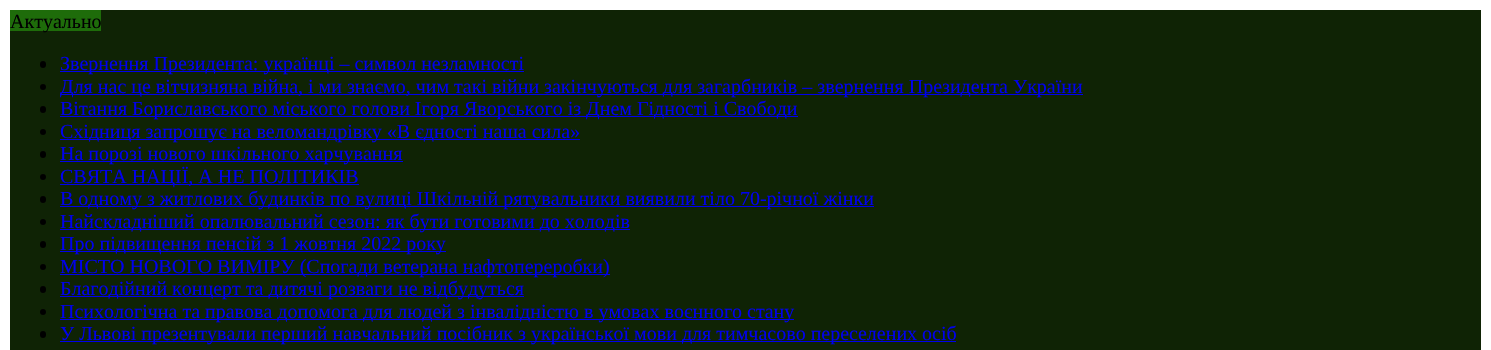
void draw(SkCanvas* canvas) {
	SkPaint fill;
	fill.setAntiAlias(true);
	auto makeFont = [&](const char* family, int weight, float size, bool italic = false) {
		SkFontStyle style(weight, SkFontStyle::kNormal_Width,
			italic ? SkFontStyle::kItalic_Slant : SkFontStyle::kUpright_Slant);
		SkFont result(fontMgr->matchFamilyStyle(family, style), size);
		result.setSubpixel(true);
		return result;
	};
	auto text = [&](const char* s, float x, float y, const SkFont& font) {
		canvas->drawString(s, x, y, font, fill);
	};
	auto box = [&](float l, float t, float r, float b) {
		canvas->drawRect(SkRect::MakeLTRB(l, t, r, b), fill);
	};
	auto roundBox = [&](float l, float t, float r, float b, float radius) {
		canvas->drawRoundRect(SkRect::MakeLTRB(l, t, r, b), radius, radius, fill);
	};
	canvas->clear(0xFFFFFFFF);
	fill.setColor(0xFF0F2305);
	box(10, 10, 1481, 350);
	fill.setColor(0xFF1E6C0A);
	box(10, 10, 101, 31);
	fill.setColor(0xFF000000);
	roundBox(40, 61, 46, 68, 3);
	fill.setColor(0xFF0000EE);
	box(60, 71, 524, 72);
	fill.setColor(0xFF000000);
	canvas->drawCircle(43, 87, 3, fill);
	fill.setColor(0xFF0000EE);
	box(60, 94, 1083, 95);
	fill.setColor(0xFF000000);
	roundBox(40, 106, 46, 113, 3);
	fill.setColor(0xFF0000EE);
	box(60, 116, 798, 117);
	fill.setColor(0xFF000000);
	canvas->drawCircle(43, 132, 3, fill);
	fill.setColor(0xFF0000EE);
	box(60, 139, 580, 140);
	fill.setColor(0xFF000000);
	roundBox(40, 151, 46, 158, 3);
	fill.setColor(0xFF0000EE);
	box(60, 161, 403, 162);
	fill.setColor(0xFF000000);
	canvas->drawCircle(43, 177, 3, fill);
	fill.setColor(0xFF0000EE);
	box(60, 184, 359, 185);
	fill.setColor(0xFF000000);
	roundBox(40, 196, 46, 203, 3);
	fill.setColor(0xFF0000EE);
	box(60, 206, 874, 207);
	fill.setColor(0xFF000000);
	canvas->drawCircle(43, 222, 3, fill);
	fill.setColor(0xFF0000EE);
	box(60, 229, 630, 230);
	fill.setColor(0xFF000000);
	roundBox(40, 241, 46, 248, 3);
	fill.setColor(0xFF0000EE);
	box(60, 251, 446, 252);
	fill.setColor(0xFF000000);
	canvas->drawCircle(43, 267, 3, fill);
	fill.setColor(0xFF0000EE);
	box(60, 274, 610, 275);
	fill.setColor(0xFF000000);
	roundBox(40, 286, 46, 293, 3);
	fill.setColor(0xFF0000EE);
	box(60, 296, 524, 297);
	fill.setColor(0xFF000000);
	canvas->drawCircle(43, 312, 3, fill);
	fill.setColor(0xFF0000EE);
	box(60, 319, 794, 320);
	fill.setColor(0xFF000000);
	roundBox(40, 331, 46, 338, 3);
	fill.setColor(0xFF0000EE);
	box(60, 341, 956, 342);
	auto font1 = makeFont("Liberation Serif", 400, 20);
	fill.setColor(0xFF000000);
	text("Актуально", 10, 28, font1);
	fill.setColor(0xFF0000EE);
	text("Звернення Президента: українці – символ незламності", 60, 70, font1);
	text("Для нас це вітчизняна війна, і ми знаємо, чим такі війни закінчуються для загарбників – звернення Президента України", 60, 93, font1);
	text("Вітання Бориславського міського голови Ігоря Яворського із Днем Гідності і Свободи", 60, 115, font1);
	text("Східниця запрошує на веломандрівку «В єдності наша сила»", 60, 138, font1);
	text("На порозі нового шкільного харчування", 60, 160, font1);
	text("СВЯТА НАЦІЇ, А НЕ ПОЛІТИКІВ", 60, 183, font1);
	text("В одному з житлових будинків по вулиці Шкільній рятувальники виявили тіло 70-річної жінки", 60, 205, font1);
	text("Найскладніший опалювальний сезон: як бути готовими до холодів", 60, 228, font1);
	text("Про підвищення пенсій з 1 жовтня 2022 року", 60, 250, font1);
	text("МІСТО НОВОГО ВИМІРУ (Спогади ветерана нафтопереробки)", 60, 273, font1);
	text("Благодійний концерт та дитячі розваги не відбудуться", 60, 295, font1);
	text("Психологічна та правова допомога для людей з інвалідністю в умовах воєнного стану", 60, 318, font1);
	text("У Львові презентували перший навчальний посібник з української мови для тимчасово переселених осіб", 60, 340, font1);
}
